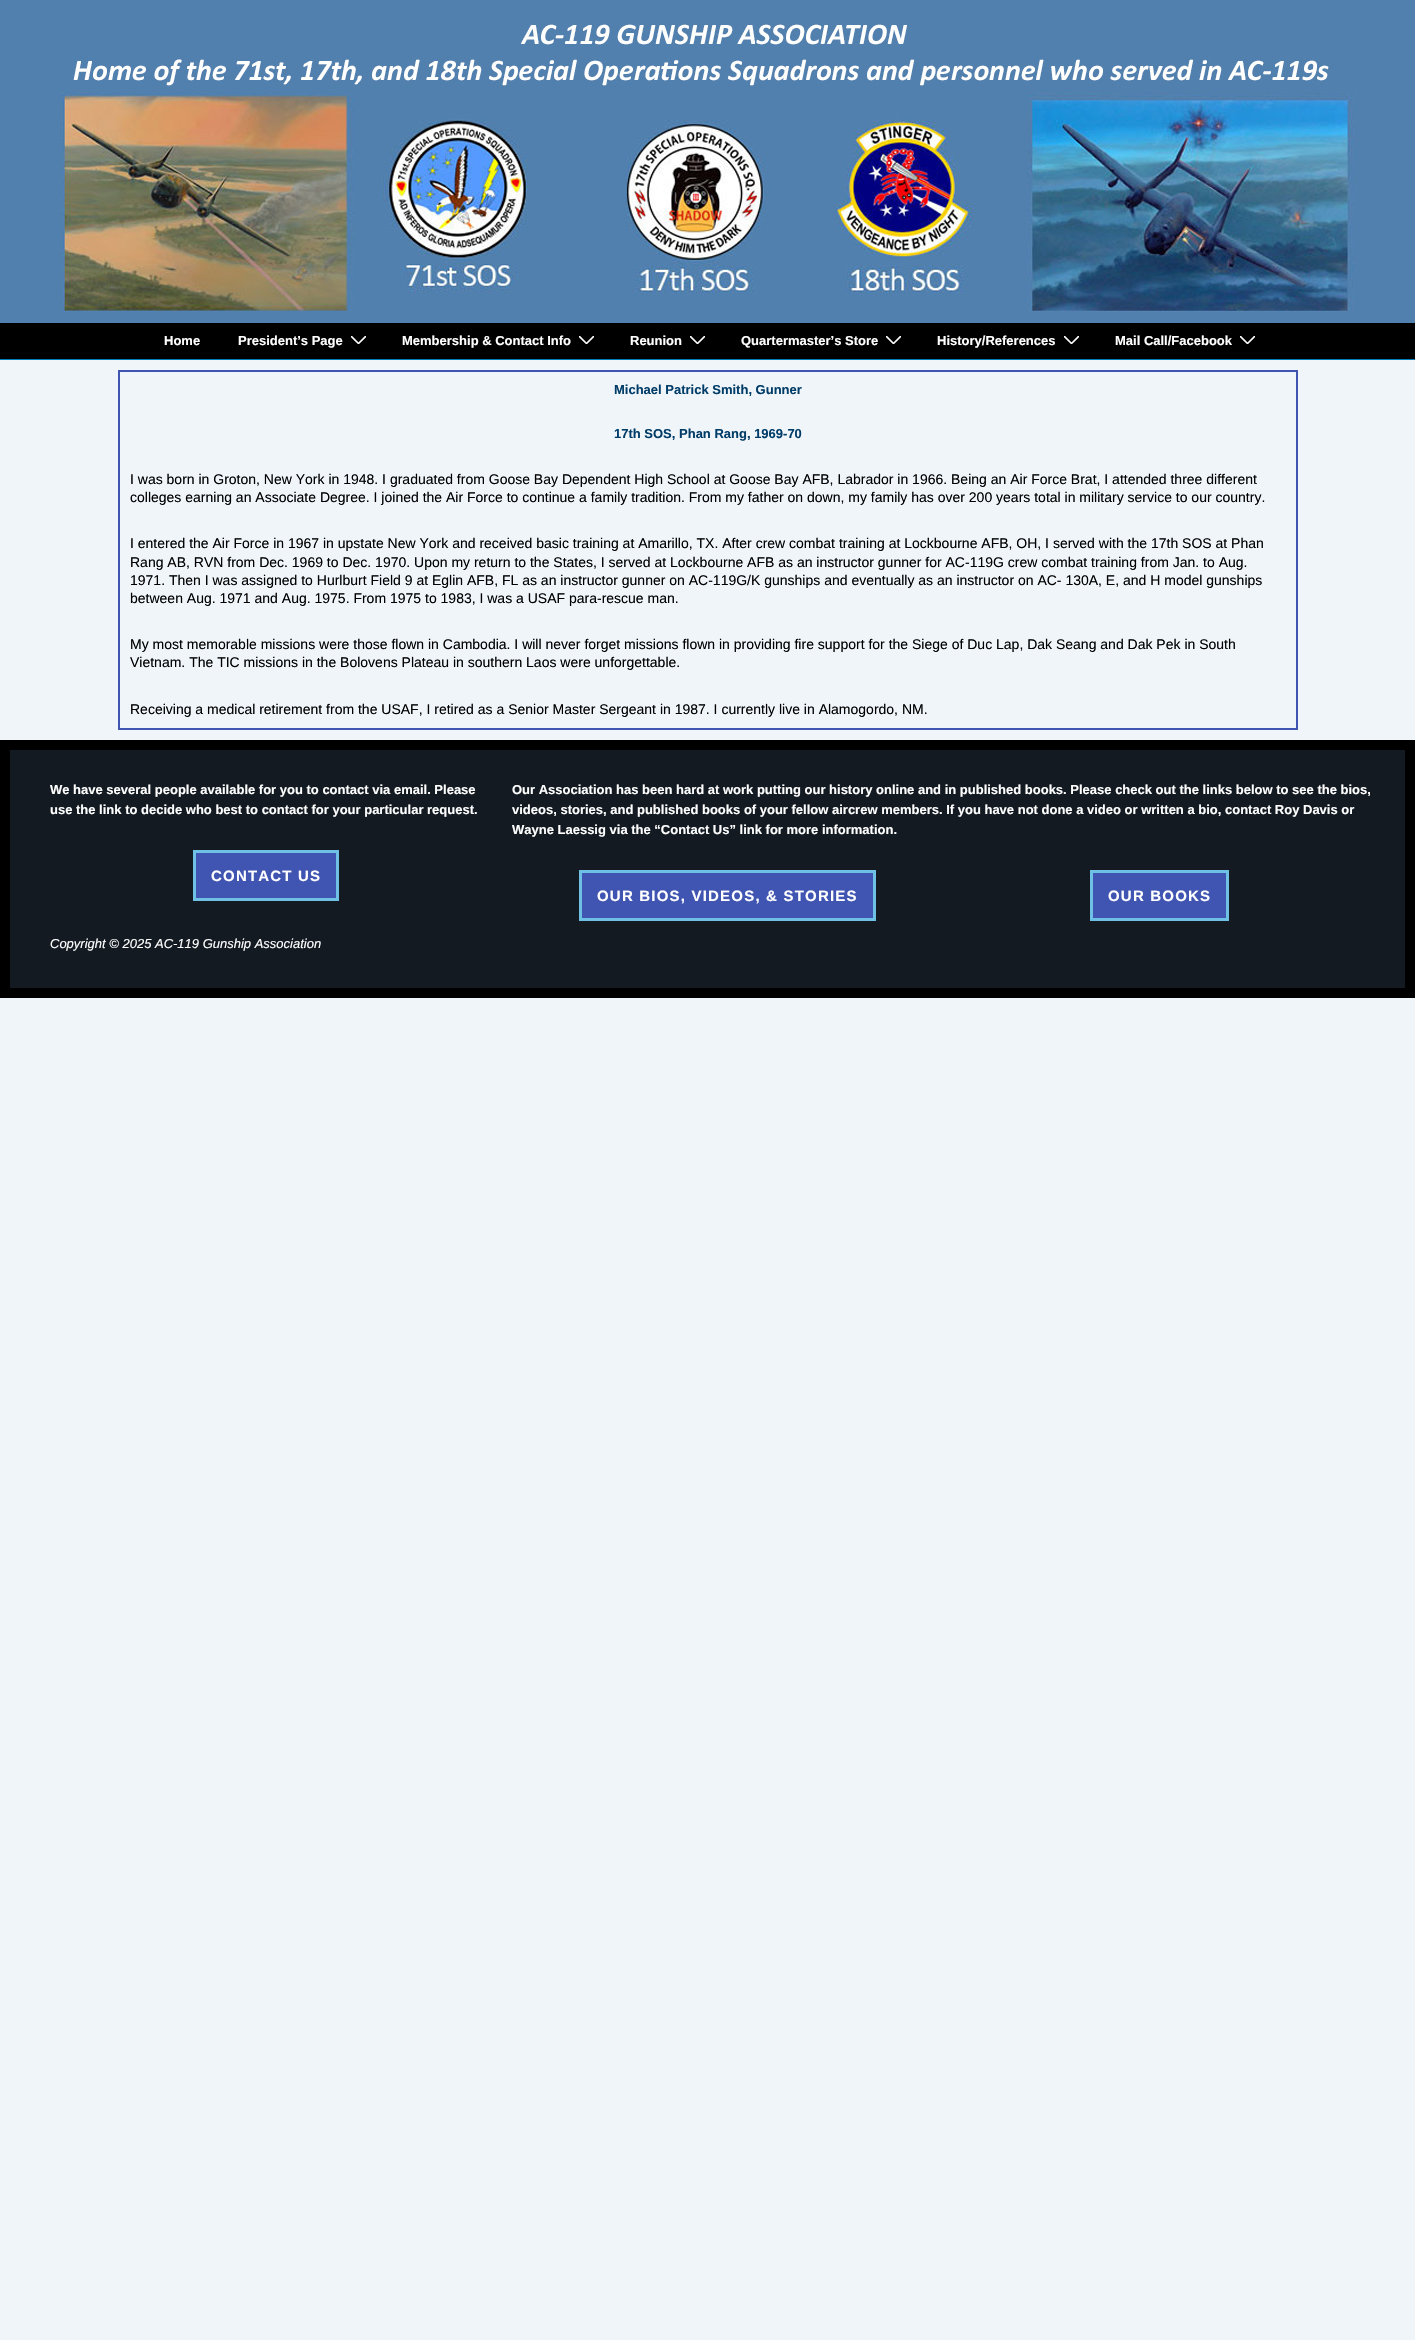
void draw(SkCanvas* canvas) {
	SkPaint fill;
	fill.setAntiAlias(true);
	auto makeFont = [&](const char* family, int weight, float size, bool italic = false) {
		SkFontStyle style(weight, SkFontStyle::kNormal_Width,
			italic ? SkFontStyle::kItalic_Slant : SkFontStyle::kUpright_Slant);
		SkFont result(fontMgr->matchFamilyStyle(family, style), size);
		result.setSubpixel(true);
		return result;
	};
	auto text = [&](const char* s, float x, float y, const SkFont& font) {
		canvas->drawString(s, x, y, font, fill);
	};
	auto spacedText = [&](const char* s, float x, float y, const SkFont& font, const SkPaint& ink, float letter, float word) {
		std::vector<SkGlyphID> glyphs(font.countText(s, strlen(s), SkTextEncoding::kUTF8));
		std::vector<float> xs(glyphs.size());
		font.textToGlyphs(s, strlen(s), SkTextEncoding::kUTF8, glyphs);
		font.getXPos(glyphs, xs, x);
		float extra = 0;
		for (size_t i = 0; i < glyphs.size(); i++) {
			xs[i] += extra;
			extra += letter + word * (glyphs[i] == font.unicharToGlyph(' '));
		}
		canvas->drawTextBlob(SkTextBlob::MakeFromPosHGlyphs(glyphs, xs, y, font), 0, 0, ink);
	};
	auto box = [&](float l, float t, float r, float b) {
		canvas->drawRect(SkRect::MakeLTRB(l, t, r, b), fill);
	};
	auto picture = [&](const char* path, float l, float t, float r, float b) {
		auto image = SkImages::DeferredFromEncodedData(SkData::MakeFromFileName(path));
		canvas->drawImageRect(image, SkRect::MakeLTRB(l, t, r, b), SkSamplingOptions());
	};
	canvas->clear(0xFFF0F5FA);
	fill.setColor(0xFF5180AE);
	box(0, 0, 1415, 323);
	picture("image0.png", 58, 24, 1356, 312);
	fill.setColor(0xFF000000);
	box(0, 323, 1415, 359);
	fill.setColor(0xFF007CBA);
	box(0, 359, 1415, 360);
	canvas->save();
	canvas->clipRect(SkRect::MakeLTRB(351, 336, 366, 344));
	fill.setStyle(SkPaint::kStroke_Style);
	fill.setStrokeWidth(1.6f);
	fill.setStrokeCap(SkPaint::kRound_Cap);
	fill.setColor(0xFFFFFFFF);
	canvas->drawPath(SkPathBuilder().moveTo(351.5f, 336.5f).lineTo(358.5f, 343.5f).lineTo(365.5f, 336.5f).detach(), fill);
	canvas->restore();
	canvas->save();
	canvas->clipRect(SkRect::MakeLTRB(579, 336, 594, 344));
	canvas->drawPath(SkPathBuilder().moveTo(579.5f, 336.5f).lineTo(586.5f, 343.5f).lineTo(593.5f, 336.5f).detach(), fill);
	canvas->restore();
	canvas->save();
	canvas->clipRect(SkRect::MakeLTRB(690, 336, 705, 344));
	canvas->drawPath(SkPathBuilder().moveTo(690.5f, 336.5f).lineTo(697.5f, 343.5f).lineTo(704.5f, 336.5f).detach(), fill);
	canvas->restore();
	canvas->save();
	canvas->clipRect(SkRect::MakeLTRB(886, 336, 901, 344));
	canvas->drawPath(SkPathBuilder().moveTo(886.5f, 336.5f).lineTo(893.5f, 343.5f).lineTo(900.5f, 336.5f).detach(), fill);
	canvas->restore();
	canvas->save();
	canvas->clipRect(SkRect::MakeLTRB(1064, 336, 1079, 344));
	canvas->drawPath(SkPathBuilder().moveTo(1064.5f, 336.5f).lineTo(1071.5f, 343.5f).lineTo(1078.5f, 336.5f).detach(), fill);
	canvas->restore();
	canvas->save();
	canvas->clipRect(SkRect::MakeLTRB(1240, 336, 1255, 344));
	canvas->drawPath(SkPathBuilder().moveTo(1240.5f, 336.5f).lineTo(1247.5f, 343.5f).lineTo(1254.5f, 336.5f).detach(), fill);
	canvas->restore();
	fill.setStrokeWidth(2);
	fill.setStrokeCap(SkPaint::kButt_Cap);
	fill.setColor(0xFF4054B2);
	canvas->drawRect(SkRect::MakeLTRB(119, 371, 1297, 729), fill);
	fill.setStyle(SkPaint::kFill_Style);
	fill.setColor(0xFF000000);
	box(0, 740, 1415, 998);
	fill.setColor(0xFF131A22);
	box(10, 750, 1405, 988);
	fill.setColor(0xFF4054B2);
	canvas->drawRect(SkRect::MakeLTRB(194.5f, 851.5f, 337.5f, 899.5f), fill);
	fill.setStyle(SkPaint::kStroke_Style);
	fill.setStrokeWidth(3);
	fill.setColor(0xFF6EC1E4);
	canvas->drawRect(SkRect::MakeLTRB(194.5f, 851.5f, 337.5f, 899.5f), fill);
	fill.setStyle(SkPaint::kFill_Style);
	fill.setColor(0xFF4054B2);
	canvas->drawRect(SkRect::MakeLTRB(580.5f, 871.5f, 874.5f, 919.5f), fill);
	fill.setStyle(SkPaint::kStroke_Style);
	fill.setColor(0xFF6EC1E4);
	canvas->drawRect(SkRect::MakeLTRB(580.5f, 871.5f, 874.5f, 919.5f), fill);
	fill.setStyle(SkPaint::kFill_Style);
	fill.setColor(0xFF4054B2);
	canvas->drawRect(SkRect::MakeLTRB(1091.5f, 871.5f, 1227.5f, 919.5f), fill);
	fill.setStyle(SkPaint::kStroke_Style);
	fill.setColor(0xFF6EC1E4);
	canvas->drawRect(SkRect::MakeLTRB(1091.5f, 871.5f, 1227.5f, 919.5f), fill);
	auto font1 = makeFont("Liberation Sans", 700, 13);
	fill.setStyle(SkPaint::kFill_Style);
	fill.setColor(0xFFFFFFFF);
	text("Home", 164, 345, font1);
	text("President’s Page", 238, 345, font1);
	text("Membership & Contact Info", 402, 345, font1);
	text("Reunion", 630, 345, font1);
	text("Quartermaster’s Store", 741, 345, font1);
	text("History/References", 937, 345, font1);
	text("Mail Call/Facebook", 1115, 345, font1);
	fill.setColor(0xFF003C68);
	text("Michael Patrick Smith, Gunner", 614, 394, font1);
	text("17th SOS, Phan Rang, 1969-70", 614, 438, font1);
	auto font2 = makeFont("Liberation Sans", 400, 14);
	fill.setColor(0xFF000000);
	text("I was born in Groton, New York in 1948. I graduated from Goose Bay Dependent High School at Goose Bay AFB, Labrador in 1966. Being an Air Force Brat, I attended three different", 130, 484, font2);
	text("colleges earning an Associate Degree. I joined the Air Force to continue a family tradition. From my father on down, my family has over 200 years total in military service to our country.", 130, 502, font2);
	text("I entered the Air Force in 1967 in upstate New York and received basic training at Amarillo, TX. After crew combat training at Lockbourne AFB, OH, I served with the 17th SOS at Phan", 130, 548, font2);
	text("Rang AB, RVN from Dec. 1969 to Dec. 1970. Upon my return to the States, I served at Lockbourne AFB as an instructor gunner for AC-119G crew combat training from Jan. to Aug.", 130, 567, font2);
	text("1971. Then I was assigned to Hurlburt Field 9 at Eglin AFB, FL as an instructor gunner on AC-119G/K gunships and eventually as an instructor on AC- 130A, E, and H model gunships", 130, 585, font2);
	text("between Aug. 1971 and Aug. 1975. From 1975 to 1983, I was a USAF para-rescue man.", 130, 603, font2);
	text("My most memorable missions were those flown in Cambodia. I will never forget missions flown in providing fire support for the Siege of Duc Lap, Dak Seang and Dak Pek in South", 130, 649, font2);
	text("Vietnam. The TIC missions in the Bolovens Plateau in southern Laos were unforgettable.", 130, 667, font2);
	text("Receiving a medical retirement from the USAF, I retired as a Senior Master Sergeant in 1987. I currently live in Alamogordo, NM.", 130, 714, font2);
	fill.setColor(0xFFFFFFFF);
	text("We have several people available for you to contact via email. Please", 50, 794, font1);
	text("use the link to decide who best to contact for your particular request.", 50, 814, font1);
	auto font3 = makeFont("Liberation Sans", 700, 15);
	spacedText("CONTACT US", 211, 881, font3, fill, 1.2f, 0);
	auto font4 = makeFont("Liberation Sans", 400, 13, true);
	text("Copyright © 2025 AC-119 Gunship Association", 50, 948, font4);
	text("Our Association has been hard at work putting our history online and in published books. Please check out the links below to see the bios,", 512, 794, font1);
	text("videos, stories, and published books of your fellow aircrew members. If you have not done a video or written a bio, contact Roy Davis or", 512, 814, font1);
	text("Wayne Laessig via the “Contact Us” link for more information.", 512, 834, font1);
	spacedText("OUR BIOS, VIDEOS, & STORIES", 597, 901, font3, fill, 1.2f, 0);
	spacedText("OUR BOOKS", 1108, 901, font3, fill, 1.2f, 0);
}
